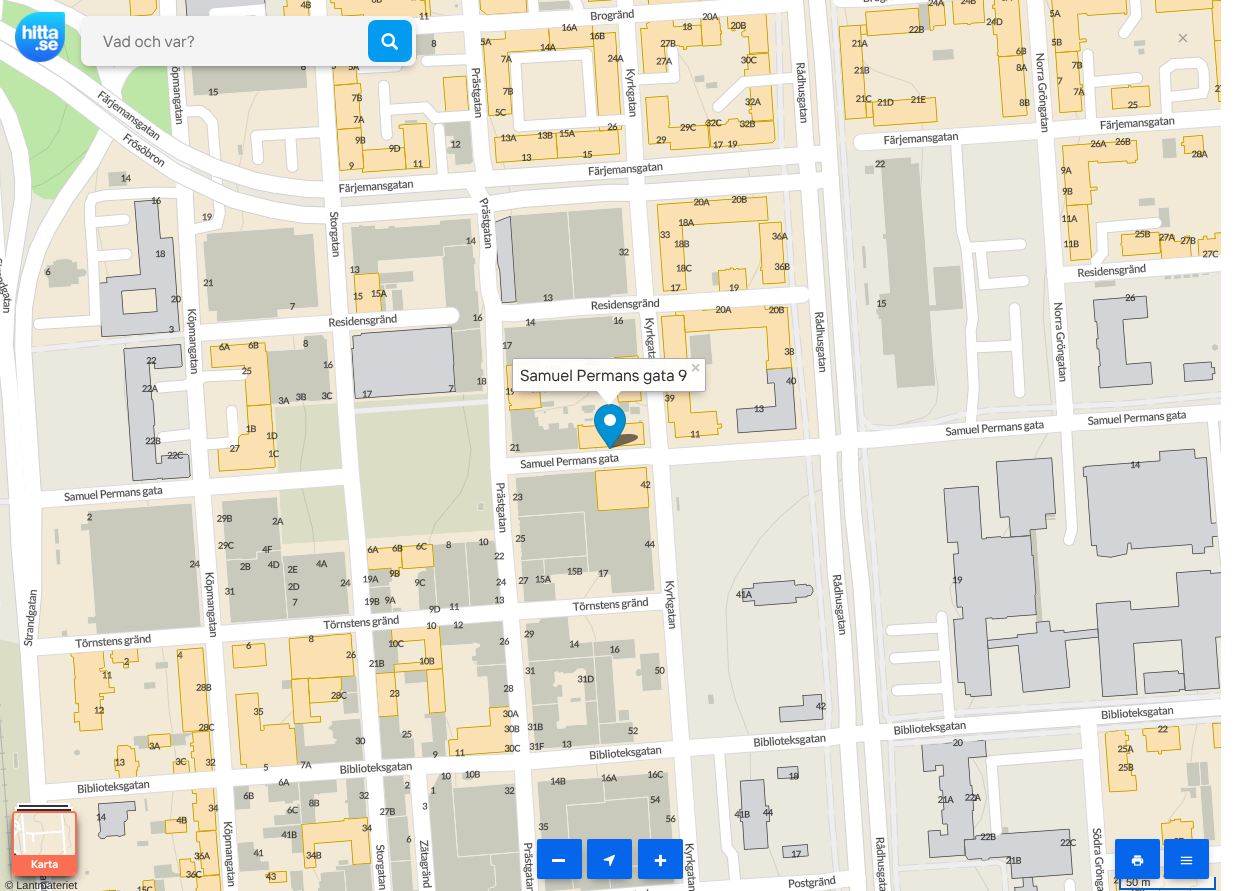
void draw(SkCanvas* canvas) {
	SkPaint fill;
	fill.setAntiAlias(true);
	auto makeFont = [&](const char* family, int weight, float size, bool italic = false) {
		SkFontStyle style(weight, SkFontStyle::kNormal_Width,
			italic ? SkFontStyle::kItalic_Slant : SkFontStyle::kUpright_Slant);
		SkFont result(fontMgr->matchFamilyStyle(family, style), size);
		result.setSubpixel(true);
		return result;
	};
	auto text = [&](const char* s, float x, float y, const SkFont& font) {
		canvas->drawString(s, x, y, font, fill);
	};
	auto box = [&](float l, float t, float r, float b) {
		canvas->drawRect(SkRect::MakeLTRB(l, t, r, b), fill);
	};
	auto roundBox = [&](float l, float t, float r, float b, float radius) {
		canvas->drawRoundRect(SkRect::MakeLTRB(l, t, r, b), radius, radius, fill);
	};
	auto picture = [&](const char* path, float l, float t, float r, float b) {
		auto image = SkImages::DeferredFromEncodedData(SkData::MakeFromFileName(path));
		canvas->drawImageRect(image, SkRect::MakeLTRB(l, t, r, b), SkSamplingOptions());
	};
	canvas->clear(0xFFFFFFFF);
	picture("image13.png", 0, 0, 238, 224);
	picture("image0.png", 15, 12, 65, 62);
	picture("image14.png", 238, 0, 494, 224);
	fill.setColor(0x80000000);
	fill.setMaskFilter(SkMaskFilter::MakeBlur(kNormal_SkBlurStyle, 5));
	canvas->drawRoundRect(SkRect::MakeLTRB(85, 24, 412, 66), 4, 4, fill);
	fill.setMaskFilter(nullptr);
	fill.setColor(0xFFF4F4F4);
	roundBox(81, 16, 416, 66, 8);
	fill.setColor(0xFF039BEF);
	roundBox(368, 20, 412, 62, 8);
	picture("image1.png", 381, 33, 398, 50);
	picture("image17.png", 1006, 0, 1221, 224);
	picture("image2.png", 1178, 33, 1188, 43);
	picture("image28.png", 0, 736, 238, 891);
	fill.setColor(0xFF333333);
	box(19, 805, 68, 807);
	fill.setStyle(SkPaint::kStroke_Style);
	fill.setStrokeWidth(2);
	fill.setColor(0xFFFFFFFF);
	canvas->drawRect(SkRect::MakeLTRB(18, 804, 69, 850), fill);
	fill.setStyle(SkPaint::kFill_Style);
	fill.setColor(0xFF333333);
	box(17, 809, 71, 811);
	fill.setStyle(SkPaint::kStroke_Style);
	fill.setColor(0xFFFFFFFF);
	canvas->drawRect(SkRect::MakeLTRB(16, 808, 72, 850), fill);
	fill.setStyle(SkPaint::kFill_Style);
	fill.setColor(0x80000000);
	fill.setMaskFilter(SkMaskFilter::MakeBlur(kNormal_SkBlurStyle, 5));
	canvas->drawRect(SkRect::MakeLTRB(16, 819, 73, 876), fill);
	fill.setMaskFilter(nullptr);
	fill.setStyle(SkPaint::kStroke_Style);
	fill.setColor(0xFFFFFFFF);
	canvas->drawRoundRect(SkRect::MakeLTRB(13, 812, 76, 875), 3, 3, fill);
	fill.setStyle(SkPaint::kFill_Style);
	fill.setColor(0x80000000);
	fill.setMaskFilter(SkMaskFilter::MakeBlur(kNormal_SkBlurStyle, 5));
	canvas->drawRect(SkRect::MakeLTRB(16, 819, 73, 876), fill);
	fill.setMaskFilter(nullptr);
	fill.setStyle(SkPaint::kStroke_Style);
	fill.setColor(0xFFFFFFFF);
	canvas->drawRoundRect(SkRect::MakeLTRB(13, 812, 76, 875), 3, 3, fill);
	picture("image3.png", 14, 813, 16, 874);
	picture("image4.png", 73, 813, 75, 874);
	fill.setStyle(SkPaint::kFill_Style);
	fill.setColor(0x80000000);
	fill.setMaskFilter(SkMaskFilter::MakeBlur(kNormal_SkBlurStyle, 5));
	canvas->drawRect(SkRect::MakeLTRB(16, 819, 73, 876), fill);
	fill.setMaskFilter(nullptr);
	fill.setStyle(SkPaint::kStroke_Style);
	fill.setColor(0xFFFFFFFF);
	canvas->drawRoundRect(SkRect::MakeLTRB(13, 812, 76, 875), 3, 3, fill);
	picture("image5.png", 14, 813, 16, 874);
	picture("image6.png", 73, 813, 75, 874);
	fill.setStyle(SkPaint::kFill_Style);
	fill.setColor(0x80000000);
	fill.setMaskFilter(SkMaskFilter::MakeBlur(kNormal_SkBlurStyle, 5));
	canvas->drawRect(SkRect::MakeLTRB(16, 819, 73, 876), fill);
	fill.setMaskFilter(nullptr);
	fill.setStyle(SkPaint::kStroke_Style);
	fill.setColor(0xFFFB6E52);
	canvas->drawRoundRect(SkRect::MakeLTRB(13, 812, 76, 875), 3, 3, fill);
	picture("image7.png", 14, 813, 27, 874);
	picture("image8.png", 27, 813, 75, 874);
	fill.setStyle(SkPaint::kFill_Style);
	canvas->drawPath(SkPathBuilder().moveTo(14, 855).lineTo(75, 855).lineTo(75, 872).cubicTo(75, 873, 74, 874, 73, 874).lineTo(16, 874).cubicTo(15, 874, 14, 873, 14, 872).close().detach(), fill);
	picture("image30.png", 494, 736, 750, 891);
	fill.setColor(0x80000000);
	fill.setMaskFilter(SkMaskFilter::MakeBlur(kNormal_SkBlurStyle, 5));
	canvas->drawRect(SkRect::MakeLTRB(541, 847, 578, 879), fill);
	fill.setMaskFilter(nullptr);
	fill.setColor(0xFF0666EB);
	roundBox(537, 839, 582, 879, 2);
	fill.setColor(0xFFFFFFFF);
	box(552, 859, 565, 862);
	fill.setColor(0x80000000);
	fill.setMaskFilter(SkMaskFilter::MakeBlur(kNormal_SkBlurStyle, 5));
	canvas->drawRect(SkRect::MakeLTRB(591, 847, 628, 879), fill);
	fill.setMaskFilter(nullptr);
	fill.setColor(0xFF0666EB);
	roundBox(587, 839, 632, 879, 2);
	picture("image9.png", 603, 854, 615, 867);
	fill.setColor(0x80000000);
	fill.setMaskFilter(SkMaskFilter::MakeBlur(kNormal_SkBlurStyle, 5));
	canvas->drawRect(SkRect::MakeLTRB(642, 847, 679, 879), fill);
	fill.setMaskFilter(nullptr);
	fill.setColor(0xFF0666EB);
	roundBox(638, 839, 683, 879, 2);
	picture("image10.png", 654, 854, 667, 867);
	picture("image32.png", 1006, 736, 1221, 891);
	fill.setColor(0x66FFFFFF);
	box(1121, 877, 1214, 888);
	fill.setColor(0x80FFFFFF);
	box(1121, 877, 1214, 888);
	fill.setColor(0xFF055DD7);
	box(1214, 877, 1216, 890);
	box(1119, 888, 1216, 890);
	fill.setColor(0x80000000);
	fill.setMaskFilter(SkMaskFilter::MakeBlur(kNormal_SkBlurStyle, 5));
	canvas->drawRect(SkRect::MakeLTRB(1168, 847, 1205, 879), fill);
	fill.setMaskFilter(nullptr);
	fill.setColor(0xFF0666EB);
	roundBox(1164, 839, 1209, 879, 2);
	fill.setColor(0xFF055DD7);
	box(1119, 877, 1121, 890);
	fill.setColor(0x80000000);
	fill.setMaskFilter(SkMaskFilter::MakeBlur(kNormal_SkBlurStyle, 5));
	canvas->drawRect(SkRect::MakeLTRB(1119, 847, 1156, 879), fill);
	fill.setMaskFilter(nullptr);
	picture("image12.png", 1180, 856, 1193, 865);
	picture("image15.png", 494, 0, 750, 224);
	picture("image16.png", 750, 0, 1006, 224);
	picture("image18.png", 0, 224, 238, 480);
	picture("image19.png", 238, 224, 494, 480);
	picture("image20.png", 494, 224, 750, 480);
	picture("image21.png", 750, 224, 1006, 480);
	picture("image22.png", 1006, 224, 1221, 480);
	picture("image23.png", 0, 480, 238, 736);
	picture("image24.png", 238, 480, 494, 736);
	picture("image25.png", 494, 480, 750, 736);
	picture("image26.png", 750, 480, 1006, 736);
	picture("image27.png", 1006, 480, 1221, 736);
	picture("image29.png", 238, 736, 494, 891);
	picture("image31.png", 750, 736, 1006, 891);
	picture("image33.png", 594, 404, 638, 449);
	canvas->save();
	canvas->clipPath(SkPathBuilder(SkPathFillType::kEvenOdd).moveTo(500, 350).lineTo(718, 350).lineTo(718, 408).lineTo(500, 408).close().moveTo(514, 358).lineTo(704, 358).cubicTo(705, 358, 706, 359, 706, 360).lineTo(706, 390).cubicTo(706, 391, 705, 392, 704, 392).lineTo(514, 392).cubicTo(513, 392, 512, 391, 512, 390).lineTo(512, 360).cubicTo(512, 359, 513, 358, 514, 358).close().detach(), true);
	fill.setMaskFilter(SkMaskFilter::MakeBlur(kNormal_SkBlurStyle, 5));
	canvas->drawRect(SkRect::MakeLTRB(516, 366, 702, 392), fill);
	fill.setMaskFilter(nullptr);
	canvas->restore();
	fill.setColor(0xF2FFFFFF);
	canvas->drawRoundRect(SkRect::MakeLTRB(512.5f, 358.5f, 705.5f, 391.5f), 1.5f, 1.5f, fill);
	fill.setStyle(SkPaint::kStroke_Style);
	fill.setStrokeWidth(1);
	fill.setColor(0xFFACACAC);
	canvas->drawRoundRect(SkRect::MakeLTRB(512.5f, 358.5f, 705.5f, 391.5f), 1.5f, 1.5f, fill);
	fill.setStyle(SkPaint::kFill_Style);
	fill.setColor(0xFFFFFFFF);
	canvas->drawPath(SkPathBuilder().moveTo(597, 391).lineTo(621, 391).lineTo(609, 405).close().detach(), fill);
	canvas->drawCircle(610, 420, 6, fill);
	auto font1 = makeFont("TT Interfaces", 400, 16);
	fill.setColor(0xFF757575);
	text("Vad och var?", 103, 47, font1);
	auto font2 = makeFont("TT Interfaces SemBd", 600, 11);
	fill.setColor(0xFFFFFFFF);
	text("Karta", 31, 868, font2);
	auto font3 = makeFont("Liberation Sans", 700, 16);
	fill.setColor(0xFFC3C3C3);
	text("×", 691, 373, font3);
	fill.setColor(0xFF333333);
	text("Samuel Permans gata 9", 520, 381, font1);
	auto font4 = makeFont("Liberation Sans", 400, 11);
	text("© Lantmäteriet", 5, 889, font4);
	text("50 m", 1126, 886, font4);
	fill.setColor(0xFF0666EB);
	roundBox(1115, 839, 1160, 879, 2);
	picture("image11.png", 1131, 855, 1144, 866);
}
